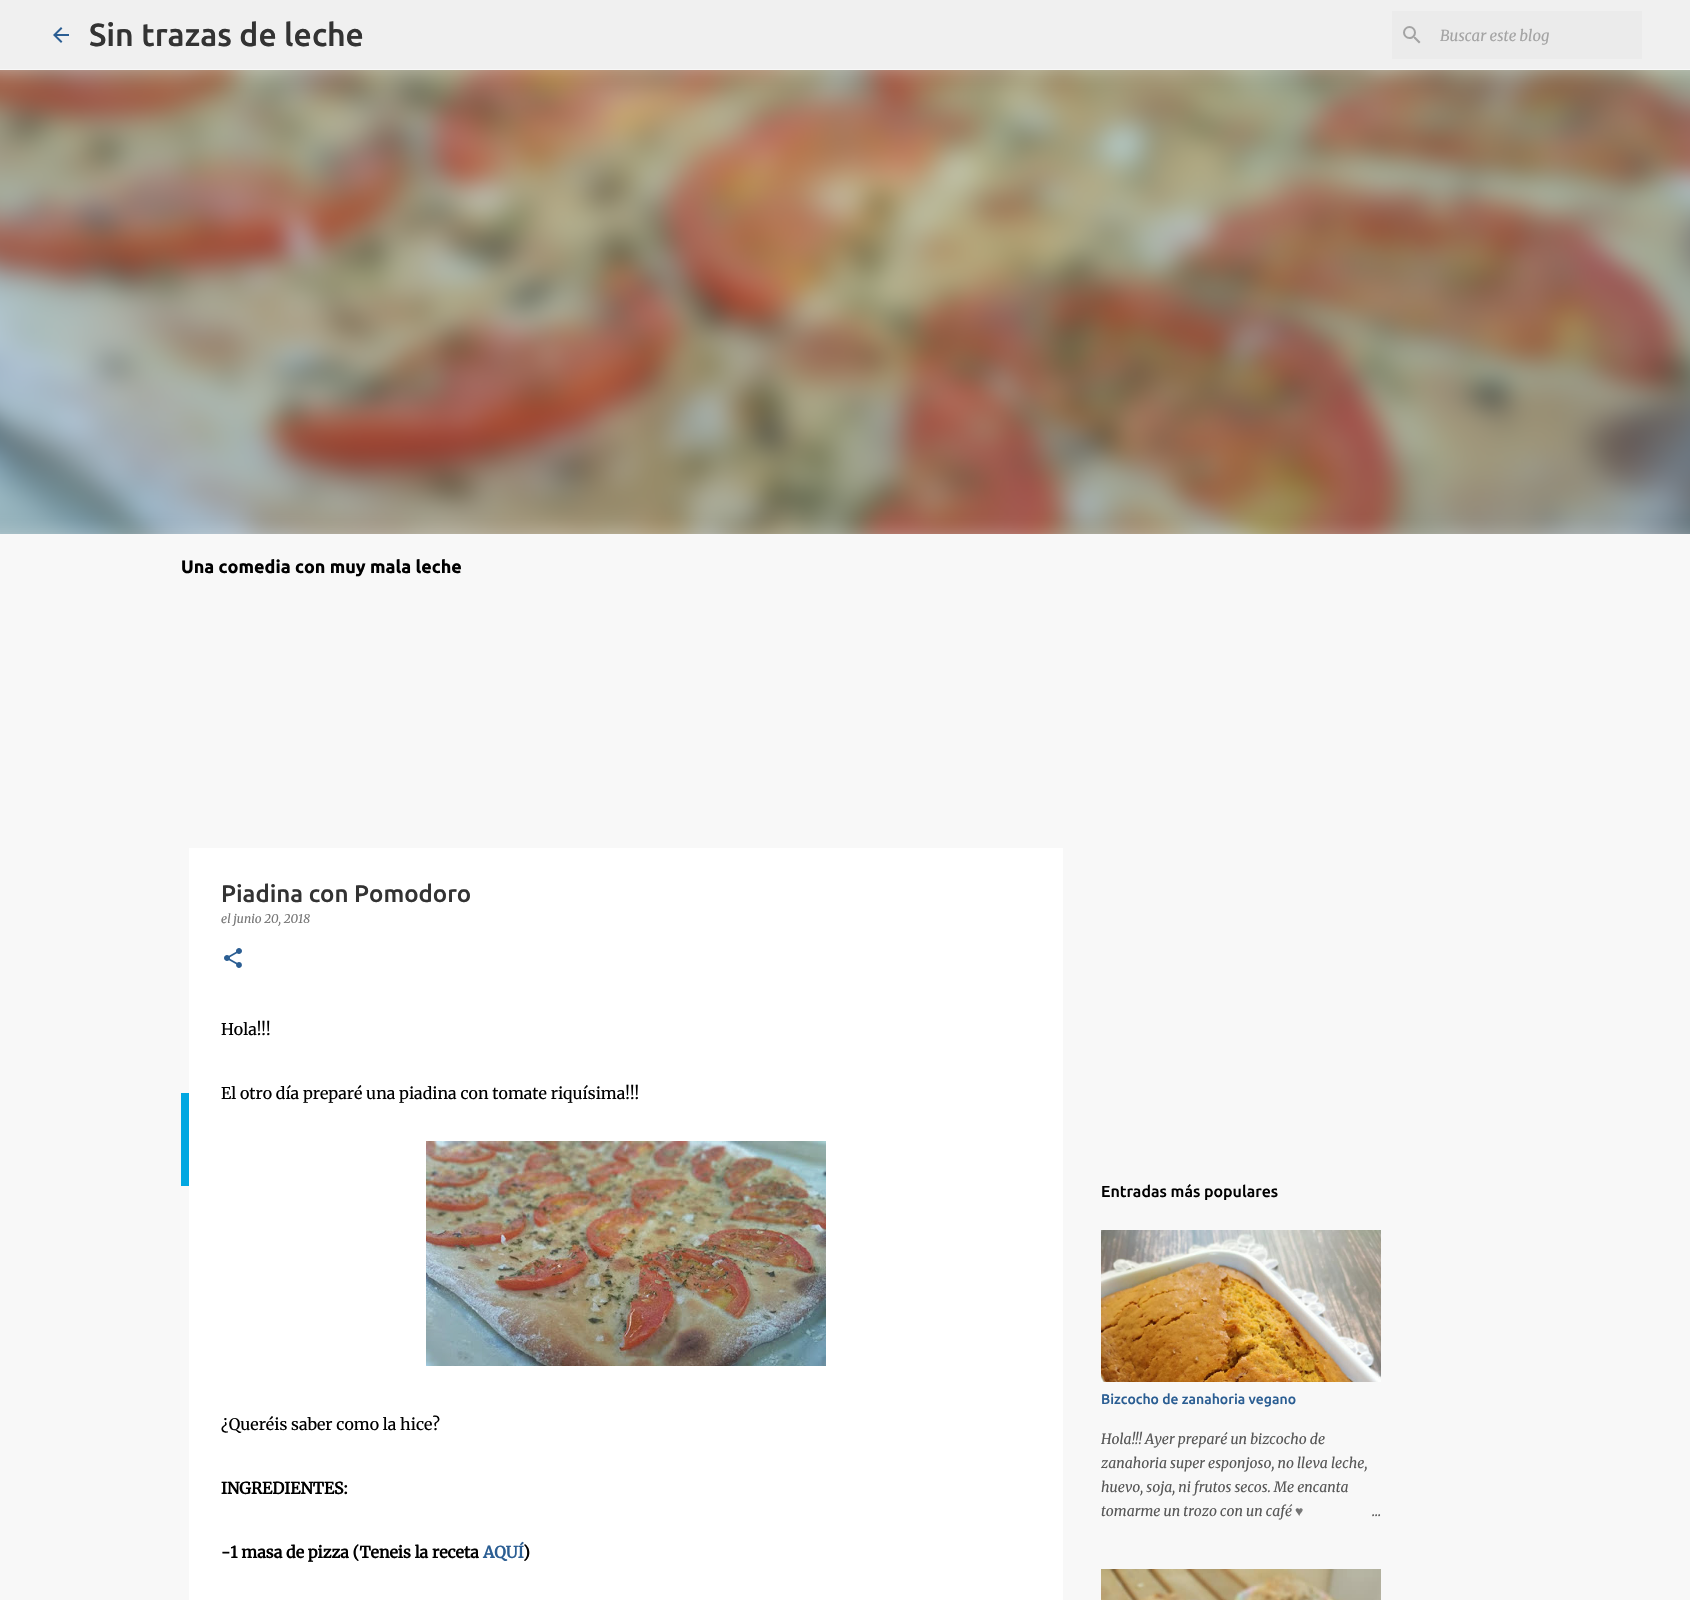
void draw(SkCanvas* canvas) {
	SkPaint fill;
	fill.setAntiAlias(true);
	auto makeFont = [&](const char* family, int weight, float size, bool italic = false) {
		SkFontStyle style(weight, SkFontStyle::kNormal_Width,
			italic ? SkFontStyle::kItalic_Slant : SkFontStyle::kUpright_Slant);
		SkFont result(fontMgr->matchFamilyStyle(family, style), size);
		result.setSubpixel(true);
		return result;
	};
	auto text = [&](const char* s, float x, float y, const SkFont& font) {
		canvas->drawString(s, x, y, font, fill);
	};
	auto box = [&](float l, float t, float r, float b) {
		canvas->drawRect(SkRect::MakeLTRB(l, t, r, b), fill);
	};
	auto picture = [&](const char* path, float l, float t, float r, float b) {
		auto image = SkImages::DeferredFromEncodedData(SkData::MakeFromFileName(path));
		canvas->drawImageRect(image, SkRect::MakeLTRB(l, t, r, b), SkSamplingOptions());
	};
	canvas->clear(0xFFF8F8F8);
	fill.setColor(0xFFF0F0F0);
	box(0, 0, 1690, 69);
	picture("image0.png", 53, 27, 69, 43);
	fill.setColor(0xFFEBEBEB);
	box(1392, 11, 1642, 59);
	picture("image1.png", 1403, 26, 1421, 44);
	picture("image2.png", 181, 1093, 189, 1186);
	fill.setColor(0xFFFFFFFF);
	box(189, 848, 1063, 1600);
	picture("image3.png", 224, 948, 242, 968);
	picture("image4.png", 426, 1141, 826, 1366);
	picture("image5.png", 1101, 1230, 1381, 1382);
	picture("image6.png", 1101, 1569, 1381, 1600);
	picture("image7.png", 0, 70, 1690, 534);
	auto font1 = makeFont("Ubuntu", 500, 32);
	fill.setColor(0xFF333333);
	text("Sin trazas de leche", 89, 46, font1);
	auto font2 = makeFont("Merriweather", 400, 15, true);
	fill.setColor(0xFFA4A4A4);
	text("Buscar este blog", 1440, 41, font2);
	auto font3 = makeFont("Ubuntu", 700, 18);
	fill.setColor(0xFF000000);
	text("Una comedia con muy mala leche", 181, 573, font3);
	auto font4 = makeFont("Ubuntu", 500, 24);
	fill.setColor(0xFF333333);
	text("Piadina con Pomodoro", 221, 902, font4);
	auto font5 = makeFont("Merriweather", 400, 12, true);
	fill.setColor(0xFF777777);
	text("el junio 20, 2018", 221, 923, font5);
	auto font6 = makeFont("Merriweather", 300, 16);
	fill.setColor(0xFF000000);
	text("Hola!!!", 221, 1035, font6);
	text("El otro día preparé una piadina con tomate riquísima!!!", 221, 1099, font6);
	text("¿Queréis saber como la hice?", 221, 1430, font6);
	auto font7 = makeFont("Merriweather", 700, 16);
	text("INGREDIENTES:", 221, 1494, font7);
	text("-1 masa de pizza (Teneis la receta", 221, 1558, font7);
	fill.setColor(0xFF2B5E93);
	text("AQUÍ", 483, 1558, font7);
	fill.setColor(0xFF000000);
	text(")", 523, 1558, font7);
	auto font8 = makeFont("Ubuntu", 500, 16);
	text("Entradas más populares", 1101, 1197, font8);
	auto font9 = makeFont("Ubuntu", 500, 14);
	fill.setColor(0xFF2B5E93);
	text("Bizcocho de zanahoria vegano", 1101, 1404, font9);
	auto font10 = makeFont("Merriweather", 400, 14, true);
	fill.setColor(0xFF575757);
	text("Hola!!! Ayer preparé un bizcocho de", 1101, 1444, font10);
	text("zanahoria super esponjoso, no lleva leche,", 1101, 1468, font10);
	text("huevo, soja, ni frutos secos. Me encanta", 1101, 1492, font10);
	text("tomarme un trozo con un café", 1101, 1516, font10);
	auto font11 = makeFont("Liberation Serif", 400, 14, true);
	text("♥", 1295, 1516, font11);
	{
		const SkColor colors[] = {0xFFF8F8F8, 0xFFF8F8F8, 0x00F8F8F8};
		const float stops[] = {0, 0.2f, 1};
		const SkPoint ends[] = {{1381, 1511}, {1285, 1511}};
		fill.setShader(SkGradientShader::MakeLinear(ends, colors, stops, 3, SkTileMode::kClamp));
		fill.setAlpha(255);
	}
	box(1287, 1504, 1303, 1516);
	fill.setShader(nullptr);
	fill.setColor(0xFF575757);
	text("…", 1372, 1516, font10);
}
